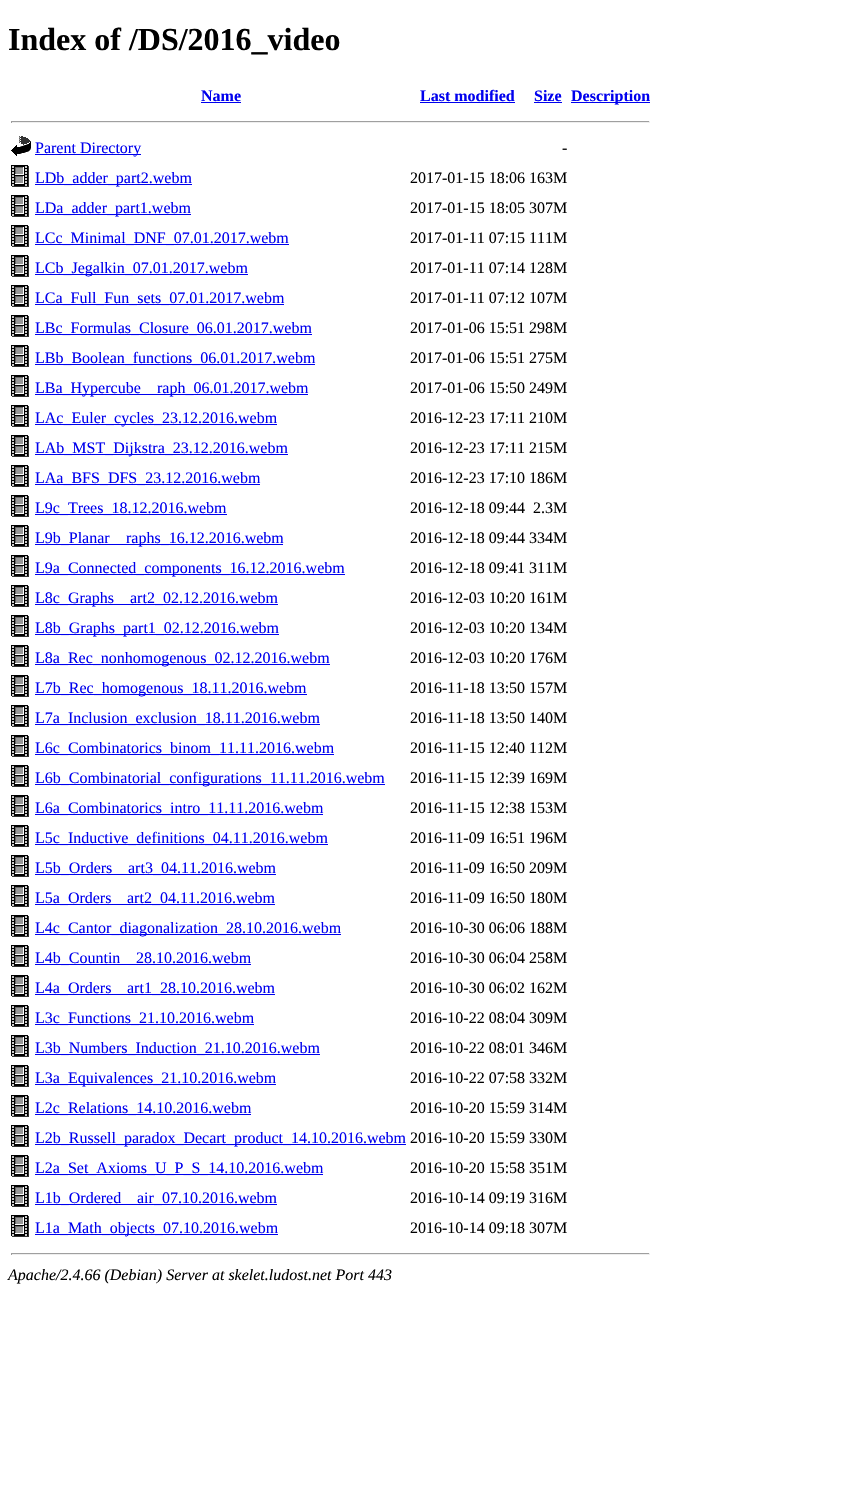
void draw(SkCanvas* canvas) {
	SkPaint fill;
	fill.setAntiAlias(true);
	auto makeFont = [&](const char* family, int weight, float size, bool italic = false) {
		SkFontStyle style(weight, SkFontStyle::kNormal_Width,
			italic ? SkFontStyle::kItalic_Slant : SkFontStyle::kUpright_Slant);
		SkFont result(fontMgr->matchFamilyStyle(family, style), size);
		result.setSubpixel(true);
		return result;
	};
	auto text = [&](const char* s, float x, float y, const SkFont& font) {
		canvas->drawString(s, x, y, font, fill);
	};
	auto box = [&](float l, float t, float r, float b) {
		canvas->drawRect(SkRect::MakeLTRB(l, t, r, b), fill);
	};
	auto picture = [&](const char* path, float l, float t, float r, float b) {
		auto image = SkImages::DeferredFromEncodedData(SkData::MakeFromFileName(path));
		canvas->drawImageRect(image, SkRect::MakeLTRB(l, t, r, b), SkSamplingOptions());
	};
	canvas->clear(0xFFFFFFFF);
	fill.setColor(0xFF0000EE);
	box(201, 102, 241, 103);
	box(420, 102, 515, 103);
	box(534, 102, 562, 103);
	box(571, 102, 650, 103);
	fill.setColor(0xFF9F9F9F);
	box(11, 121, 650, 122);
	fill.setColor(0xFFEEEEEE);
	box(649, 121, 650, 123);
	box(11, 122, 650, 123);
	fill.setColor(0xFF9F9F9F);
	box(11, 121, 12, 123);
	picture("image0.png", 11, 136, 31, 156);
	fill.setColor(0xFF0000EE);
	box(35, 154, 141, 155);
	picture("image1.png", 11, 165, 29, 187);
	box(35, 184, 192, 185);
	picture("image1.png", 11, 195, 29, 217);
	box(35, 214, 191, 215);
	picture("image1.png", 11, 225, 29, 247);
	box(35, 244, 289, 245);
	picture("image1.png", 11, 255, 29, 277);
	box(35, 274, 248, 275);
	picture("image1.png", 11, 285, 29, 307);
	box(35, 304, 284, 305);
	picture("image1.png", 11, 315, 29, 337);
	box(35, 334, 312, 335);
	picture("image1.png", 11, 345, 29, 367);
	box(35, 364, 315, 365);
	picture("image1.png", 11, 375, 29, 397);
	box(35, 394, 308, 395);
	picture("image1.png", 11, 405, 29, 427);
	box(35, 424, 277, 425);
	picture("image1.png", 11, 435, 29, 457);
	box(35, 454, 288, 455);
	picture("image1.png", 11, 465, 29, 487);
	box(35, 484, 260, 485);
	picture("image1.png", 11, 495, 29, 517);
	box(35, 514, 227, 515);
	picture("image1.png", 11, 525, 29, 547);
	box(35, 544, 283, 545);
	picture("image1.png", 11, 555, 29, 577);
	box(35, 574, 345, 575);
	picture("image1.png", 11, 585, 29, 607);
	box(35, 604, 278, 605);
	picture("image1.png", 11, 615, 29, 637);
	box(35, 634, 279, 635);
	picture("image1.png", 11, 645, 29, 667);
	box(35, 664, 330, 665);
	picture("image1.png", 11, 675, 29, 697);
	box(35, 694, 307, 695);
	picture("image1.png", 11, 705, 29, 727);
	box(35, 724, 320, 725);
	picture("image1.png", 11, 735, 29, 757);
	box(35, 754, 334, 755);
	picture("image1.png", 11, 765, 29, 787);
	box(35, 784, 385, 785);
	picture("image1.png", 11, 795, 29, 817);
	box(35, 814, 323, 815);
	picture("image1.png", 11, 825, 29, 847);
	box(35, 844, 328, 845);
	picture("image1.png", 11, 855, 29, 877);
	box(35, 874, 276, 875);
	picture("image1.png", 11, 885, 29, 907);
	box(35, 904, 275, 905);
	picture("image1.png", 11, 915, 29, 937);
	box(35, 934, 341, 935);
	picture("image1.png", 11, 945, 29, 967);
	box(35, 964, 251, 965);
	picture("image1.png", 11, 975, 29, 997);
	box(35, 994, 275, 995);
	picture("image1.png", 11, 1005, 29, 1027);
	box(35, 1024, 254, 1025);
	picture("image1.png", 11, 1035, 29, 1057);
	box(35, 1054, 320, 1055);
	picture("image1.png", 11, 1065, 29, 1087);
	box(35, 1084, 276, 1085);
	picture("image1.png", 11, 1095, 29, 1117);
	box(35, 1114, 251, 1115);
	picture("image1.png", 11, 1125, 29, 1147);
	box(35, 1144, 406, 1145);
	picture("image1.png", 11, 1155, 29, 1177);
	box(35, 1174, 323, 1175);
	picture("image1.png", 11, 1185, 29, 1207);
	box(35, 1204, 277, 1205);
	picture("image1.png", 11, 1215, 29, 1237);
	box(35, 1234, 278, 1235);
	fill.setColor(0xFF9F9F9F);
	box(11, 1253, 650, 1254);
	fill.setColor(0xFFEEEEEE);
	box(649, 1253, 650, 1255);
	box(11, 1254, 650, 1255);
	fill.setColor(0xFF9F9F9F);
	box(11, 1253, 12, 1255);
	auto font1 = makeFont("Liberation Serif", 700, 32);
	fill.setColor(0xFF000000);
	text("Index of /DS/2016_video", 8, 50, font1);
	auto font2 = makeFont("Liberation Serif", 700, 16);
	fill.setColor(0xFF0000EE);
	text("Name", 201, 101, font2);
	text("Last modified", 420, 101, font2);
	text("Size", 534, 101, font2);
	text("Description", 571, 101, font2);
	auto font3 = makeFont("Liberation Serif", 400, 16);
	text("Parent Directory", 35, 153, font3);
	fill.setColor(0xFF000000);
	text("-", 562, 153, font3);
	fill.setColor(0xFF0000EE);
	text("LDb_adder_part2.webm", 35, 183, font3);
	fill.setColor(0xFF000000);
	text("2017-01-15 18:06 163M", 410, 183, font3);
	fill.setColor(0xFF0000EE);
	text("LDa_adder_part1.webm", 35, 213, font3);
	fill.setColor(0xFF000000);
	text("2017-01-15 18:05 307M", 410, 213, font3);
	fill.setColor(0xFF0000EE);
	text("LCc_Minimal_DNF_07.01.2017.webm", 35, 243, font3);
	fill.setColor(0xFF000000);
	text("2017-01-11 07:15 111M", 410, 243, font3);
	fill.setColor(0xFF0000EE);
	text("LCb_Jegalkin_07.01.2017.webm", 35, 273, font3);
	fill.setColor(0xFF000000);
	text("2017-01-11 07:14 128M", 410, 273, font3);
	fill.setColor(0xFF0000EE);
	text("LCa_Full_Fun_sets_07.01.2017.webm", 35, 303, font3);
	fill.setColor(0xFF000000);
	text("2017-01-11 07:12 107M", 410, 303, font3);
	fill.setColor(0xFF0000EE);
	text("LBc_Formulas_Closure_06.01.2017.webm", 35, 333, font3);
	fill.setColor(0xFF000000);
	text("2017-01-06 15:51 298M", 410, 333, font3);
	fill.setColor(0xFF0000EE);
	text("LBb_Boolean_functions_06.01.2017.webm", 35, 363, font3);
	fill.setColor(0xFF000000);
	text("2017-01-06 15:51 275M", 410, 363, font3);
	fill.setColor(0xFF0000EE);
	text("LBa_Hypercube", 35, 393, font3);
	text("raph_06.01.2017.webm", 157, 393, font3);
	fill.setColor(0xFF000000);
	text("2017-01-06 15:50 249M", 410, 393, font3);
	fill.setColor(0xFF0000EE);
	text("LAc_Euler_cycles_23.12.2016.webm", 35, 423, font3);
	fill.setColor(0xFF000000);
	text("2016-12-23 17:11 210M", 410, 423, font3);
	fill.setColor(0xFF0000EE);
	text("LAb_MST_Dijkstra_23.12.2016.webm", 35, 453, font3);
	fill.setColor(0xFF000000);
	text("2016-12-23 17:11 215M", 410, 453, font3);
	fill.setColor(0xFF0000EE);
	text("LAa_BFS_DFS_23.12.2016.webm", 35, 483, font3);
	fill.setColor(0xFF000000);
	text("2016-12-23 17:10 186M", 410, 483, font3);
	fill.setColor(0xFF0000EE);
	text("L9c_Trees_18.12.2016.webm", 35, 513, font3);
	fill.setColor(0xFF000000);
	text("2016-12-18 09:44", 410, 513, font3);
	text("2.3M", 533, 513, font3);
	fill.setColor(0xFF0000EE);
	text("L9b_Planar", 35, 543, font3);
	text("raphs_16.12.2016.webm", 126, 543, font3);
	fill.setColor(0xFF000000);
	text("2016-12-18 09:44 334M", 410, 543, font3);
	fill.setColor(0xFF0000EE);
	text("L9a_Connected_components_16.12.2016.webm", 35, 573, font3);
	fill.setColor(0xFF000000);
	text("2016-12-18 09:41 311M", 410, 573, font3);
	fill.setColor(0xFF0000EE);
	text("L8c_Graphs", 35, 603, font3);
	text("art2_02.12.2016.webm", 130, 603, font3);
	fill.setColor(0xFF000000);
	text("2016-12-03 10:20 161M", 410, 603, font3);
	fill.setColor(0xFF0000EE);
	text("L8b_Graphs_part1_02.12.2016.webm", 35, 633, font3);
	fill.setColor(0xFF000000);
	text("2016-12-03 10:20 134M", 410, 633, font3);
	fill.setColor(0xFF0000EE);
	text("L8a_Rec_nonhomogenous_02.12.2016.webm", 35, 663, font3);
	fill.setColor(0xFF000000);
	text("2016-12-03 10:20 176M", 410, 663, font3);
	fill.setColor(0xFF0000EE);
	text("L7b_Rec_homogenous_18.11.2016.webm", 35, 693, font3);
	fill.setColor(0xFF000000);
	text("2016-11-18 13:50 157M", 410, 693, font3);
	fill.setColor(0xFF0000EE);
	text("L7a_Inclusion_exclusion_18.11.2016.webm", 35, 723, font3);
	fill.setColor(0xFF000000);
	text("2016-11-18 13:50 140M", 410, 723, font3);
	fill.setColor(0xFF0000EE);
	text("L6c_Combinatorics_binom_11.11.2016.webm", 35, 753, font3);
	fill.setColor(0xFF000000);
	text("2016-11-15 12:40 112M", 410, 753, font3);
	fill.setColor(0xFF0000EE);
	text("L6b_Combinatorial_configurations_11.11.2016.webm", 35, 783, font3);
	fill.setColor(0xFF000000);
	text("2016-11-15 12:39 169M", 410, 783, font3);
	fill.setColor(0xFF0000EE);
	text("L6a_Combinatorics_intro_11.11.2016.webm", 35, 813, font3);
	fill.setColor(0xFF000000);
	text("2016-11-15 12:38 153M", 410, 813, font3);
	fill.setColor(0xFF0000EE);
	text("L5c_Inductive_definitions_04.11.2016.webm", 35, 843, font3);
	fill.setColor(0xFF000000);
	text("2016-11-09 16:51 196M", 410, 843, font3);
	fill.setColor(0xFF0000EE);
	text("L5b_Orders", 35, 873, font3);
	text("art3_04.11.2016.webm", 128, 873, font3);
	fill.setColor(0xFF000000);
	text("2016-11-09 16:50 209M", 410, 873, font3);
	fill.setColor(0xFF0000EE);
	text("L5a_Orders", 35, 903, font3);
	text("art2_04.11.2016.webm", 127, 903, font3);
	fill.setColor(0xFF000000);
	text("2016-11-09 16:50 180M", 410, 903, font3);
	fill.setColor(0xFF0000EE);
	text("L4c_Cantor_diagonalization_28.10.2016.webm", 35, 933, font3);
	fill.setColor(0xFF000000);
	text("2016-10-30 06:06 188M", 410, 933, font3);
	fill.setColor(0xFF0000EE);
	text("L4b_Countin", 35, 963, font3);
	text("28.10.2016.webm", 136, 963, font3);
	fill.setColor(0xFF000000);
	text("2016-10-30 06:04 258M", 410, 963, font3);
	fill.setColor(0xFF0000EE);
	text("L4a_Orders", 35, 993, font3);
	text("art1_28.10.2016.webm", 127, 993, font3);
	fill.setColor(0xFF000000);
	text("2016-10-30 06:02 162M", 410, 993, font3);
	fill.setColor(0xFF0000EE);
	text("L3c_Functions_21.10.2016.webm", 35, 1023, font3);
	fill.setColor(0xFF000000);
	text("2016-10-22 08:04 309M", 410, 1023, font3);
	fill.setColor(0xFF0000EE);
	text("L3b_Numbers_Induction_21.10.2016.webm", 35, 1053, font3);
	fill.setColor(0xFF000000);
	text("2016-10-22 08:01 346M", 410, 1053, font3);
	fill.setColor(0xFF0000EE);
	text("L3a_Equivalences_21.10.2016.webm", 35, 1083, font3);
	fill.setColor(0xFF000000);
	text("2016-10-22 07:58 332M", 410, 1083, font3);
	fill.setColor(0xFF0000EE);
	text("L2c_Relations_14.10.2016.webm", 35, 1113, font3);
	fill.setColor(0xFF000000);
	text("2016-10-20 15:59 314M", 410, 1113, font3);
	fill.setColor(0xFF0000EE);
	text("L2b_Russell_paradox_Decart_product_14.10.2016.webm", 35, 1143, font3);
	fill.setColor(0xFF000000);
	text("2016-10-20 15:59 330M", 410, 1143, font3);
	fill.setColor(0xFF0000EE);
	text("L2a_Set_Axioms_U_P_S_14.10.2016.webm", 35, 1173, font3);
	fill.setColor(0xFF000000);
	text("2016-10-20 15:58 351M", 410, 1173, font3);
	fill.setColor(0xFF0000EE);
	text("L1b_Ordered", 35, 1203, font3);
	text("air_07.10.2016.webm", 137, 1203, font3);
	fill.setColor(0xFF000000);
	text("2016-10-14 09:19 316M", 410, 1203, font3);
	fill.setColor(0xFF0000EE);
	text("L1a_Math_objects_07.10.2016.webm", 35, 1233, font3);
	fill.setColor(0xFF000000);
	text("2016-10-14 09:18 307M", 410, 1233, font3);
	auto font4 = makeFont("Liberation Serif", 400, 16, true);
	text("Apache/2.4.66 (Debian) Server at skelet.ludost.net Port 443", 8, 1280, font4);
}
